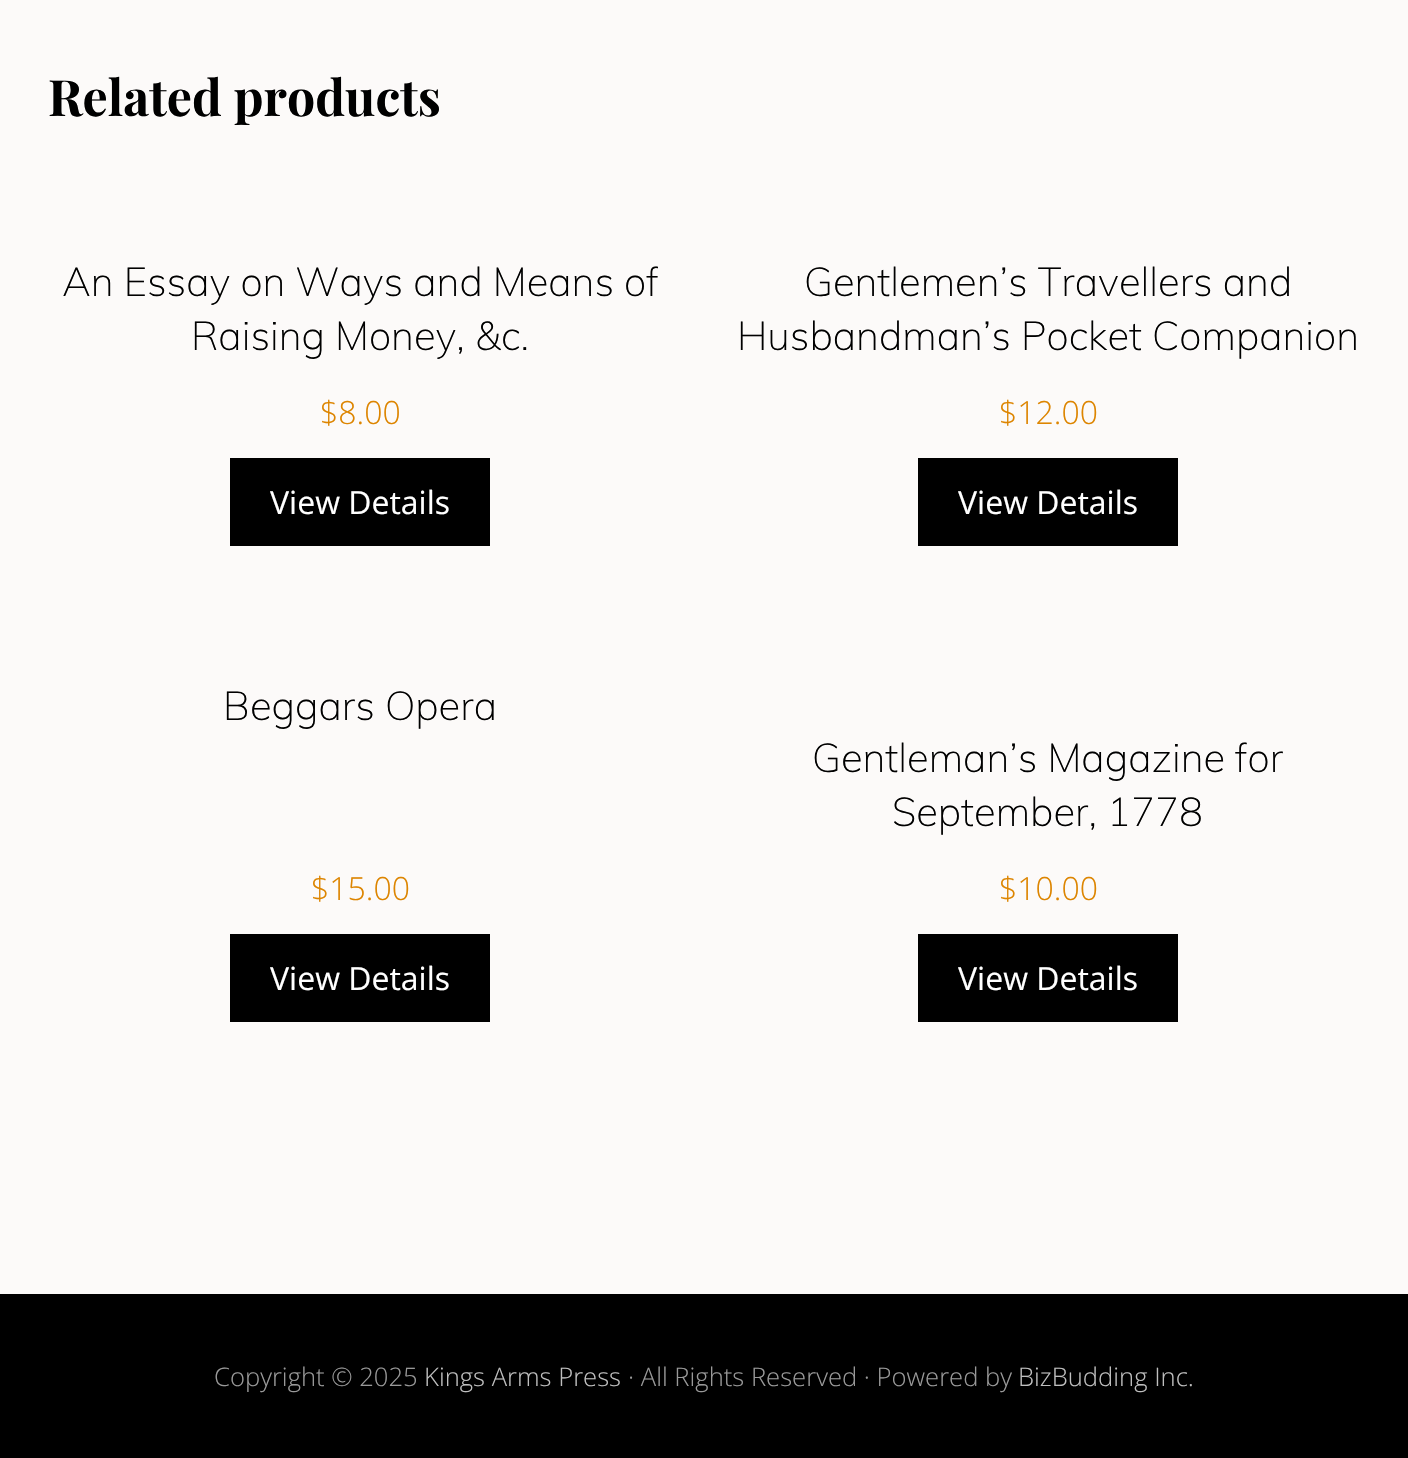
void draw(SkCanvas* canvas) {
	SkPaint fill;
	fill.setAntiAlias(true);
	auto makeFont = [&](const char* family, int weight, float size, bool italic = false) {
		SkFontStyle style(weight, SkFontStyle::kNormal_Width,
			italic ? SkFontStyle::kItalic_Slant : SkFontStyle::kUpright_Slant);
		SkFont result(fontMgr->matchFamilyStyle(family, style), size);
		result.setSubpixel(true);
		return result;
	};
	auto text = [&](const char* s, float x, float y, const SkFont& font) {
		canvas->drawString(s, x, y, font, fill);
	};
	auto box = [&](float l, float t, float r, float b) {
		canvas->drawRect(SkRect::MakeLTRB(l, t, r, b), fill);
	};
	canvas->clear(0xFFFCFAF9);
	fill.setColor(0xFF000000);
	box(230, 458, 490, 546);
	box(918, 458, 1178, 546);
	box(230, 934, 490, 1022);
	box(918, 934, 1178, 1022);
	box(0, 1294, 1408, 1458);
	auto font1 = makeFont("Playfair Display", 700, 50);
	text("Related products", 48, 116, font1);
	auto font2 = makeFont("Muli", 200, 40);
	text("An Essay on Ways and Means of", 62, 296, font2);
	text("Raising Money, &c.", 191, 350, font2);
	auto font3 = makeFont("Open Sans", 300, 32);
	fill.setColor(0xFFDD8500);
	text("$8.00", 320, 424, font3);
	auto font4 = makeFont("Open Sans", 400, 32);
	fill.setColor(0xFFFFFFFF);
	text("View Details", 270, 514, font4);
	fill.setColor(0xFF000000);
	text("Gentlemen’s Travellers and", 804, 296, font2);
	text("Husbandman’s Pocket Companion", 737, 350, font2);
	fill.setColor(0xFFDD8500);
	text("$12.00", 999, 424, font3);
	fill.setColor(0xFFFFFFFF);
	text("View Details", 958, 514, font4);
	fill.setColor(0xFF000000);
	text("Beggars Opera", 223, 720, font2);
	fill.setColor(0xFFDD8500);
	text("$15.00", 311, 900, font3);
	fill.setColor(0xFFFFFFFF);
	text("View Details", 270, 990, font4);
	fill.setColor(0xFF000000);
	text("Gentleman’s Magazine for", 812, 772, font2);
	text("September, 1778", 892, 826, font2);
	fill.setColor(0xFFDD8500);
	text("$10.00", 999, 900, font3);
	fill.setColor(0xFFFFFFFF);
	text("View Details", 958, 990, font4);
	auto font5 = makeFont("Open Sans", 300, 25.6f);
	fill.setColor(0xFF999999);
	text("Copyright © 2025", 214, 1386, font5);
	fill.setColor(0xFFBFBFBF);
	text("Kings Arms Press", 424, 1386, font5);
	fill.setColor(0xFF999999);
	text("· All Rights Reserved · Powered by", 628, 1386, font5);
	fill.setColor(0xFFBFBFBF);
	text("BizBudding Inc.", 1018, 1386, font5);
}
